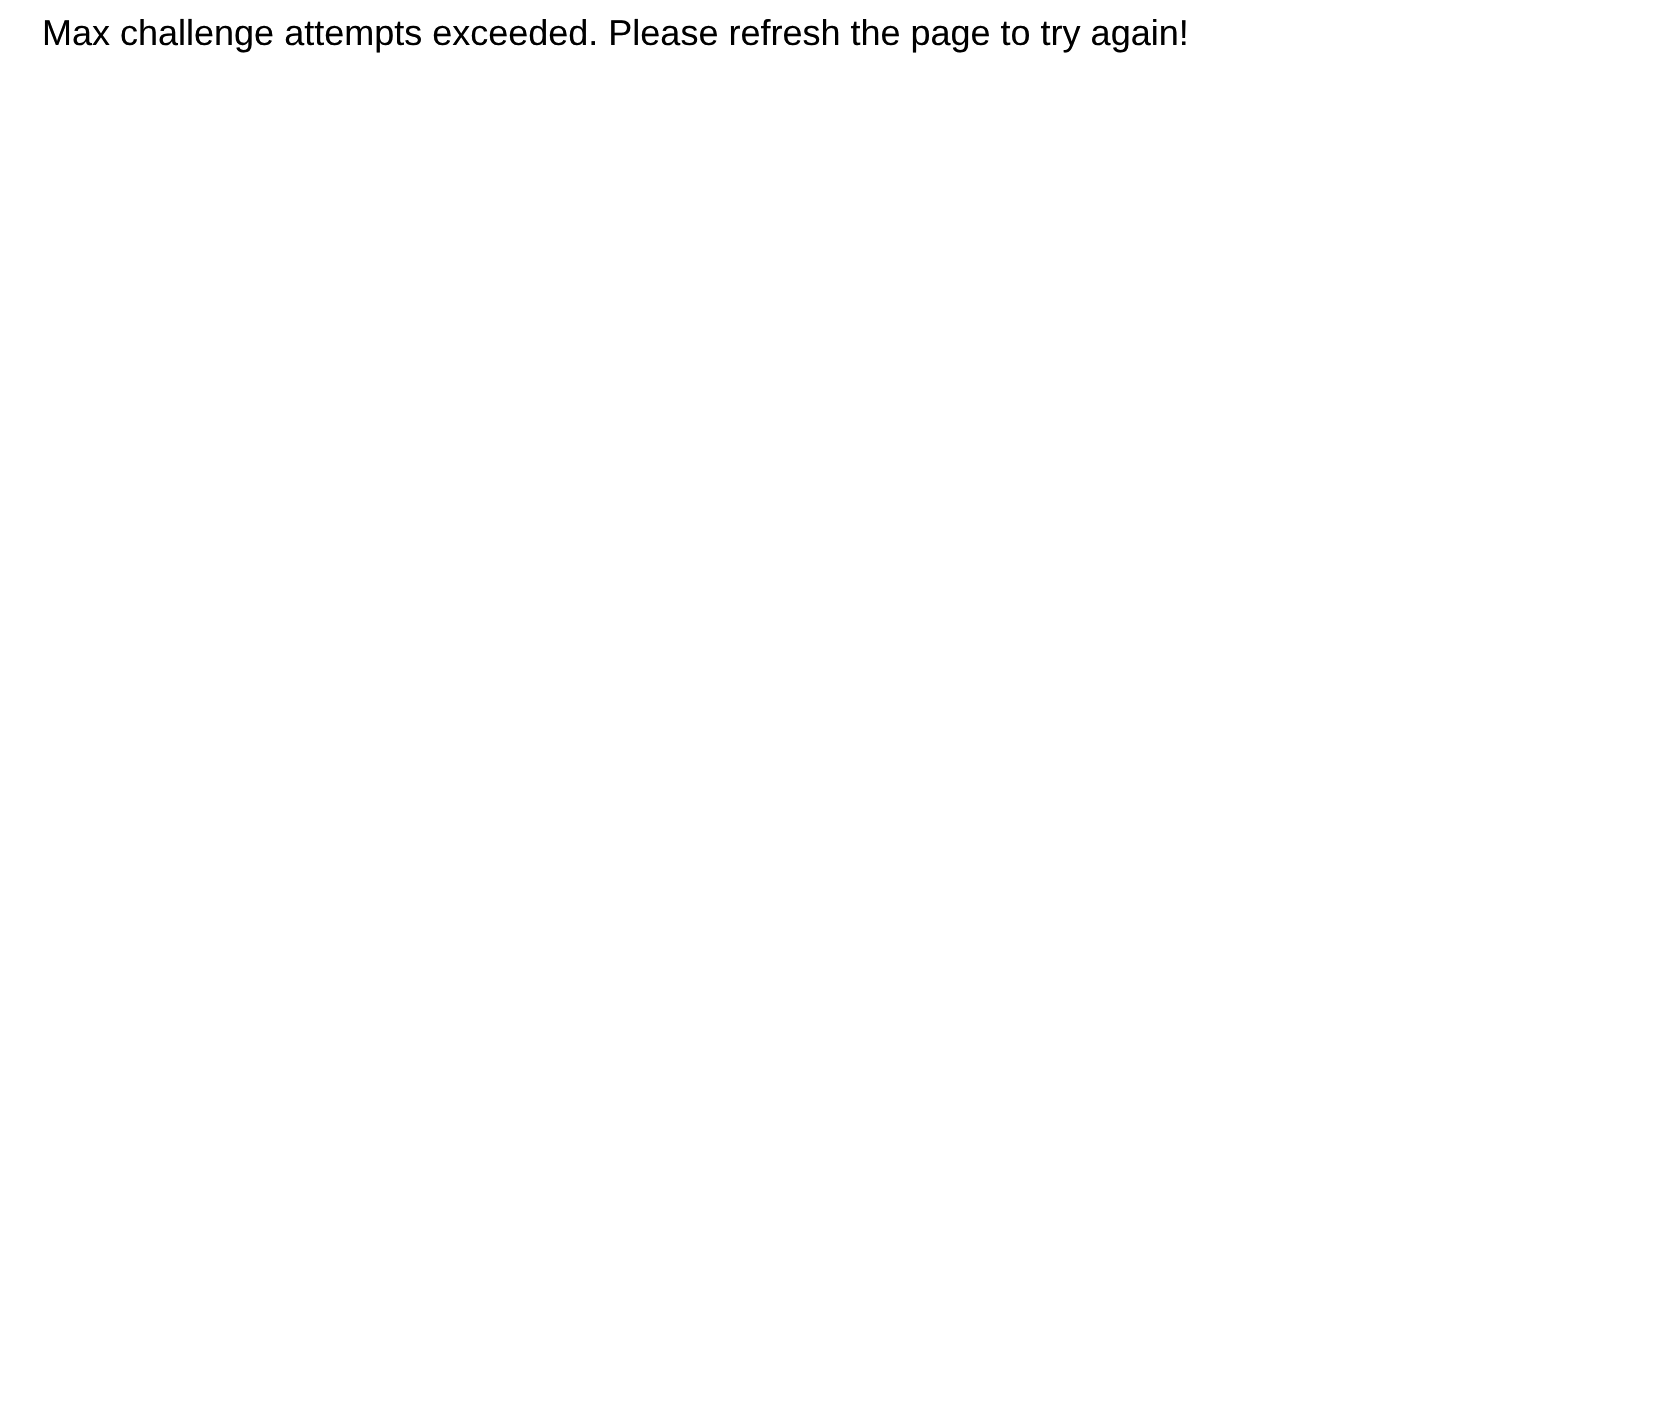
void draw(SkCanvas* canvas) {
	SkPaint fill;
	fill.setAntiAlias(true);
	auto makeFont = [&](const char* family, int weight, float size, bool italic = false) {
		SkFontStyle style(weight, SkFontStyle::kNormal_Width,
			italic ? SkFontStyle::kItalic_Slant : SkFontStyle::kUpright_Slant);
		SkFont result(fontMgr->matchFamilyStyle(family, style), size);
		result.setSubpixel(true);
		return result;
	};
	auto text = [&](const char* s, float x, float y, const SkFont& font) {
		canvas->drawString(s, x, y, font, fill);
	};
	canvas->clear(0xFFFFFFFF);
	auto font1 = makeFont("Liberation Sans", 400, 36);
	fill.setColor(0xFF000000);
	text("Max challenge attempts exceeded. Please refresh the page to try again!", 42, 45, font1);
}
